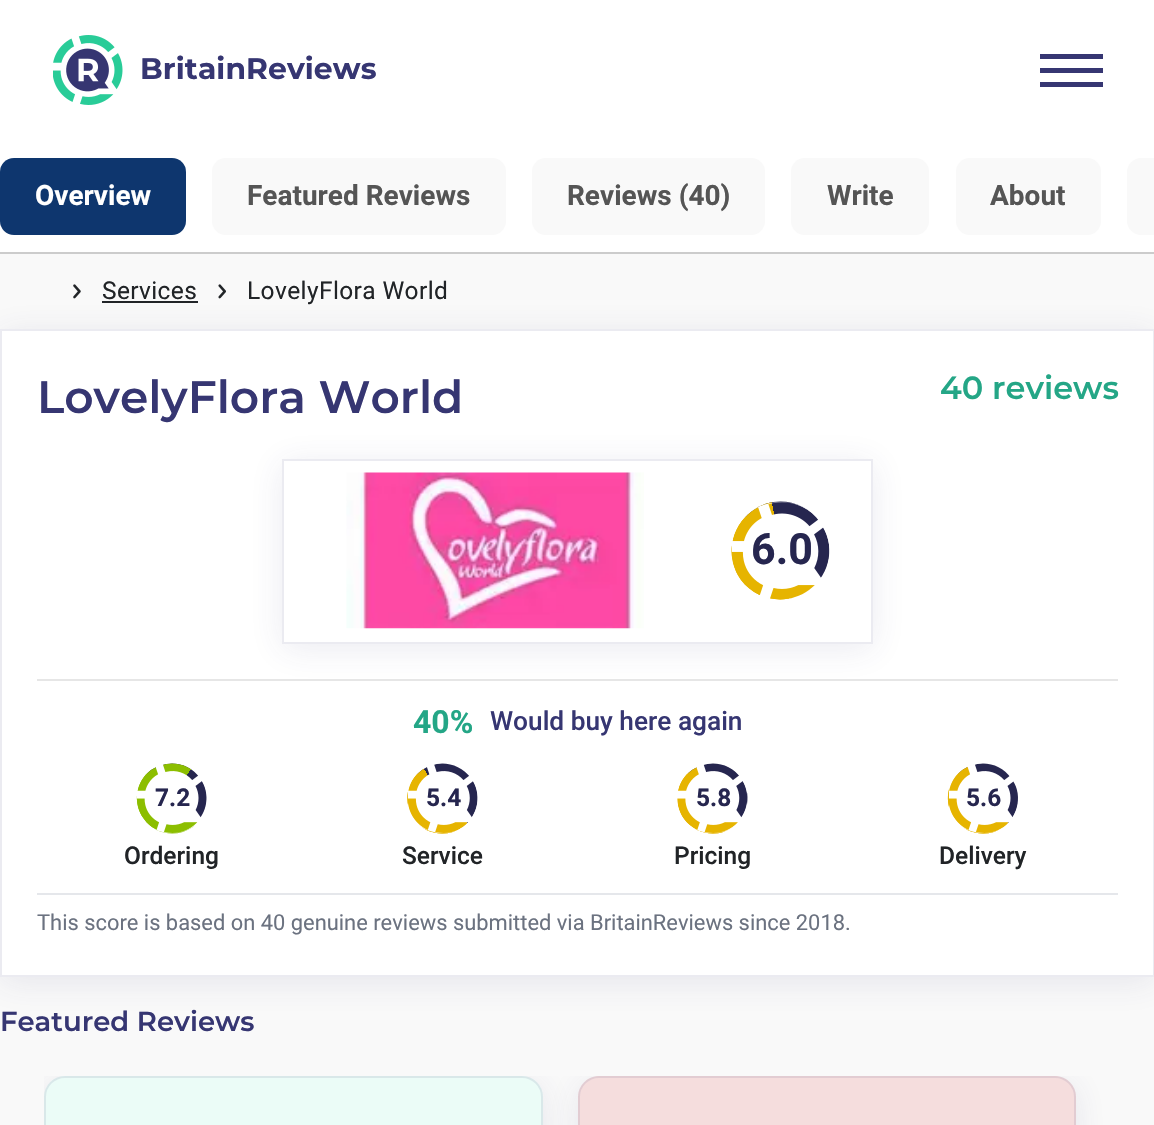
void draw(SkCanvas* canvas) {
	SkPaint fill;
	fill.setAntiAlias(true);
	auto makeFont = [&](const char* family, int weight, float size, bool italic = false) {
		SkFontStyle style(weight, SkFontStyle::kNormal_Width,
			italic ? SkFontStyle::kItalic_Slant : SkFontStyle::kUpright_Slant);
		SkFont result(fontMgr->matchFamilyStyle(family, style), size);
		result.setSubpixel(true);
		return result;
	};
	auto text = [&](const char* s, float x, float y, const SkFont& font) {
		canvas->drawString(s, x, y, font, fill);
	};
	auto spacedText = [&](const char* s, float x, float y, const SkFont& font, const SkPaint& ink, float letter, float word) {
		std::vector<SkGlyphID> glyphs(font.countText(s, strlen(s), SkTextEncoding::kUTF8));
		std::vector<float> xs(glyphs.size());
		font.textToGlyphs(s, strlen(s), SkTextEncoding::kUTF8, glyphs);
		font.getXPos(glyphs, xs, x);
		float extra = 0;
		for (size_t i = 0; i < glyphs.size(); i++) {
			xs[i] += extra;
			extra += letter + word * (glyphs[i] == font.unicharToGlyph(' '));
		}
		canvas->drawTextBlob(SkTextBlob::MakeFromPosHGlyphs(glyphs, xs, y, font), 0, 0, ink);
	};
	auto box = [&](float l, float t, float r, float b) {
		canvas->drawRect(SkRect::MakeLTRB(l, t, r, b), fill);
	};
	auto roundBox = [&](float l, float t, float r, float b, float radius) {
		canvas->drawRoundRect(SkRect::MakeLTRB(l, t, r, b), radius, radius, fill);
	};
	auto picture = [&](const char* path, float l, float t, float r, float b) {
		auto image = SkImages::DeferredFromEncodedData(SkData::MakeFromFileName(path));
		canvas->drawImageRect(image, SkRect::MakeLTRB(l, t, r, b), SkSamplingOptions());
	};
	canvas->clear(0xFFF9F9F9);
	fill.setColor(0xFFFFFFFF);
	box(0, 0, 1154, 252);
	picture("image0.png", 53, 35, 123, 105);
	fill.setColor(0xFF363672);
	box(1040, 68, 1103, 73);
	box(1040, 54, 1103, 59);
	box(1040, 82, 1103, 87);
	fill.setColor(0xFFCCCCCC);
	box(0, 252, 1154, 254);
	fill.setColor(0xFF0E366E);
	roundBox(0, 158, 186, 235, 14);
	fill.setColor(0xFFF9F9F9);
	roundBox(212, 158, 506, 235, 14);
	roundBox(532, 158, 765, 235, 14);
	roundBox(791, 158, 929, 235, 14);
	roundBox(956, 158, 1101, 235, 14);
	canvas->drawPath(SkPathBuilder().moveTo(1141, 158).lineTo(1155, 158).lineTo(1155, 235).lineTo(1141, 235).cubicTo(1133.5f, 235, 1127, 228.5f, 1127, 221).lineTo(1127, 172).cubicTo(1127, 164.5f, 1133.5f, 158, 1141, 158).close().detach(), fill);
	picture("image1.png", 73, 284, 81, 299);
	fill.setColor(0xFF212427);
	box(102, 301, 198, 303);
	picture("image2.png", 218, 284, 226, 299);
	fill.setColor(0x1A363672);
	fill.setMaskFilter(SkMaskFilter::MakeBlur(kNormal_SkBlurStyle, 16));
	canvas->drawRect(SkRect::MakeLTRB(0, 334, 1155, 982), fill);
	fill.setMaskFilter(nullptr);
	fill.setColor(0xFFFFFFFF);
	canvas->drawRect(SkRect::MakeLTRB(1, 330, 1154, 976), fill);
	fill.setStyle(SkPaint::kStroke_Style);
	fill.setStrokeWidth(2);
	fill.setColor(0xFFEBEBF1);
	canvas->drawRect(SkRect::MakeLTRB(1, 330, 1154, 976), fill);
	fill.setStyle(SkPaint::kFill_Style);
	fill.setColor(0xFFE6E6E6);
	box(37, 679, 1118, 681);
	canvas->save();
	canvas->clipPath(SkPathBuilder(SkPathFillType::kEvenOdd).moveTo(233, 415).lineTo(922, 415).lineTo(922, 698).lineTo(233, 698).close().moveTo(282, 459).lineTo(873, 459).lineTo(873, 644).lineTo(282, 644).close().detach(), true);
	fill.setColor(0x1A363672);
	fill.setMaskFilter(SkMaskFilter::MakeBlur(kNormal_SkBlurStyle, 16));
	canvas->drawRect(SkRect::MakeLTRB(282, 464, 873, 649), fill);
	fill.setMaskFilter(nullptr);
	canvas->restore();
	fill.setStyle(SkPaint::kStroke_Style);
	fill.setColor(0xFFEBEBF1);
	canvas->drawRect(SkRect::MakeLTRB(283, 460, 872, 643), fill);
	picture("image3.png", 346, 472, 644, 629);
	fill.setStyle(SkPaint::kFill_Style);
	{
		const SkColor colors[] = {0xFFE6B400, 0xFF26264F, 0xFF26264F};
		const float stops[] = {0.5f, 0.5f, 1};
		const SkPoint ends[] = {{741, 592}, {820, 510}};
		fill.setShader(SkGradientShader::MakeLinear(ends, colors, stops, 3, SkTileMode::kClamp));
		fill.setAlpha(255);
	}
	canvas->drawPath(SkPathBuilder().moveTo(809, 590).cubicTo(787, 606, 757, 601, 741, 580).cubicTo(725, 558, 730, 527, 752, 511).cubicTo(774, 495, 804, 500, 820, 522).cubicTo(836, 544, 831, 574, 809, 590).close().detach(), fill);
	{
		const SkColor colors[] = {0xFFE6B400, 0x00E6B400, 0x00000000};
		const float stops[] = {0.5f, 0.5f, 1};
		const SkPoint ends[] = {{716, 562}, {845, 539}};
		fill.setShader(SkGradientShader::MakeLinear(ends, colors, stops, 3, SkTileMode::kClamp));
		fill.setAlpha(255);
	}
	canvas->drawPath(SkPathBuilder().moveTo(809, 590).cubicTo(787, 606, 757, 601, 741, 580).cubicTo(725, 558, 730, 527, 752, 511).cubicTo(774, 495, 804, 500, 820, 522).cubicTo(836, 544, 831, 574, 809, 590).close().detach(), fill);
	picture("image4.png", 732, 502, 830, 600);
	{
		const SkColor colors[] = {0xFF8CBE00, 0xFF26264F, 0xFF26264F};
		const float stops[] = {0.5f, 0.5f, 1};
		const SkPoint ends[] = {{144, 827}, {200, 769}};
		fill.setShader(SkGradientShader::MakeLinear(ends, colors, stops, 3, SkTileMode::kClamp));
		fill.setAlpha(255);
	}
	canvas->drawPath(SkPathBuilder().moveTo(193, 827).cubicTo(177, 838, 155, 835, 144, 819).cubicTo(132, 803, 136, 781, 151, 770).cubicTo(167, 759, 189, 762, 200, 778).cubicTo(212, 793, 208, 815, 193, 827).close().detach(), fill);
	{
		const SkColor colors[] = {0xFF8CBE00, 0x008CBE00, 0x00000000};
		const float stops[] = {0.5f, 0.5f, 1};
		const SkPoint ends[] = {{134, 774}, {210, 823}};
		fill.setShader(SkGradientShader::MakeLinear(ends, colors, stops, 3, SkTileMode::kClamp));
		fill.setAlpha(255);
	}
	canvas->drawPath(SkPathBuilder().moveTo(193, 827).cubicTo(177, 838, 155, 835, 144, 819).cubicTo(132, 803, 136, 781, 151, 770).cubicTo(167, 759, 189, 762, 200, 778).cubicTo(212, 793, 208, 815, 193, 827).close().detach(), fill);
	picture("image5.png", 137, 763, 207, 833);
	{
		const SkColor colors[] = {0xFFE6B400, 0xFF26264F, 0xFF26264F};
		const float stops[] = {0.5f, 0.5f, 1};
		const SkPoint ends[] = {{414, 827}, {470, 769}};
		fill.setShader(SkGradientShader::MakeLinear(ends, colors, stops, 3, SkTileMode::kClamp));
		fill.setAlpha(255);
	}
	canvas->drawPath(SkPathBuilder().moveTo(463, 827).cubicTo(447, 838, 425, 835, 414, 819).cubicTo(403, 803, 406, 781, 422, 770).cubicTo(437, 759, 459, 762, 471, 778).cubicTo(482, 793, 479, 815, 463, 827).close().detach(), fill);
	{
		const SkColor colors[] = {0xFFE6B400, 0x00E6B400, 0x00000000};
		const float stops[] = {0.5f, 0.5f, 1};
		const SkPoint ends[] = {{410, 818}, {474, 779}};
		fill.setShader(SkGradientShader::MakeLinear(ends, colors, stops, 3, SkTileMode::kClamp));
		fill.setAlpha(255);
	}
	canvas->drawPath(SkPathBuilder().moveTo(463, 827).cubicTo(447, 838, 425, 835, 414, 819).cubicTo(403, 803, 406, 781, 422, 770).cubicTo(437, 759, 459, 762, 471, 778).cubicTo(482, 793, 479, 815, 463, 827).close().detach(), fill);
	picture("image6.png", 408, 763, 478, 833);
	{
		const SkColor colors[] = {0xFFE6B400, 0xFF26264F, 0xFF26264F};
		const float stops[] = {0.5f, 0.5f, 1};
		const SkPoint ends[] = {{685, 827}, {741, 769}};
		fill.setShader(SkGradientShader::MakeLinear(ends, colors, stops, 3, SkTileMode::kClamp));
		fill.setAlpha(255);
	}
	canvas->drawPath(SkPathBuilder().moveTo(733, 827).cubicTo(718, 838, 696, 835, 684, 819).cubicTo(673, 803, 676, 781, 692, 770).cubicTo(708, 759, 730, 762, 741, 778).cubicTo(752, 793, 749, 815, 733, 827).close().detach(), fill);
	{
		const SkColor colors[] = {0xFFE6B400, 0x00E6B400, 0x00000000};
		const float stops[] = {0.5f, 0.5f, 1};
		const SkPoint ends[] = {{670, 811}, {755, 785}};
		fill.setShader(SkGradientShader::MakeLinear(ends, colors, stops, 3, SkTileMode::kClamp));
		fill.setAlpha(255);
	}
	canvas->drawPath(SkPathBuilder().moveTo(733, 827).cubicTo(718, 838, 696, 835, 684, 819).cubicTo(673, 803, 676, 781, 692, 770).cubicTo(708, 759, 730, 762, 741, 778).cubicTo(752, 793, 749, 815, 733, 827).close().detach(), fill);
	picture("image7.png", 677, 763, 747, 833);
	{
		const SkColor colors[] = {0xFFE6B400, 0xFF26264F, 0xFF26264F};
		const float stops[] = {0.5f, 0.5f, 1};
		const SkPoint ends[] = {{955, 827}, {1011, 769}};
		fill.setShader(SkGradientShader::MakeLinear(ends, colors, stops, 3, SkTileMode::kClamp));
		fill.setAlpha(255);
	}
	canvas->drawPath(SkPathBuilder().moveTo(1004, 827).cubicTo(988, 838, 966, 835, 955, 819).cubicTo(943, 803, 947, 781, 962, 770).cubicTo(978, 759, 1000, 762, 1011, 778).cubicTo(1023, 793, 1019, 815, 1004, 827).close().detach(), fill);
	{
		const SkColor colors[] = {0xFFE6B400, 0x00E6B400, 0x00000000};
		const float stops[] = {0.5f, 0.5f, 1};
		const SkPoint ends[] = {{945, 815}, {1021, 781}};
		fill.setShader(SkGradientShader::MakeLinear(ends, colors, stops, 3, SkTileMode::kClamp));
		fill.setAlpha(255);
	}
	canvas->drawPath(SkPathBuilder().moveTo(1004, 827).cubicTo(988, 838, 966, 835, 955, 819).cubicTo(943, 803, 947, 781, 962, 770).cubicTo(978, 759, 1000, 762, 1011, 778).cubicTo(1023, 793, 1019, 815, 1004, 827).close().detach(), fill);
	picture("image8.png", 949, 763, 1018, 833);
	fill.setShader(nullptr);
	fill.setColor(0xFFE5E7EB);
	box(37, 893, 1118, 895);
	canvas->save();
	canvas->clipRect(SkRect::MakeLTRB(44, 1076, 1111, 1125));
	fill.setColor(0x1A363672);
	fill.setMaskFilter(SkMaskFilter::MakeBlur(kNormal_SkBlurStyle, 16));
	canvas->drawRoundRect(SkRect::MakeLTRB(44, 1082, 543, 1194), 21, 21, fill);
	fill.setMaskFilter(nullptr);
	canvas->restore();
	fill.setColor(0xFFEBFCF7);
	canvas->drawPath(SkPathBuilder().moveTo(65, 1076).lineTo(522, 1076).cubicTo(533.5f, 1076, 543, 1085.5f, 543, 1097).lineTo(543, 1125).lineTo(44, 1125).lineTo(44, 1097).cubicTo(44, 1085.5f, 53.5f, 1076, 65, 1076).close().detach(), fill);
	fill.setStyle(SkPaint::kStroke_Style);
	fill.setColor(0x1A363672);
	canvas->drawRoundRect(SkRect::MakeLTRB(45, 1077, 542, 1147), 20, 20, fill);
	canvas->save();
	canvas->clipRect(SkRect::MakeLTRB(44, 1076, 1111, 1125));
	fill.setStyle(SkPaint::kFill_Style);
	fill.setMaskFilter(SkMaskFilter::MakeBlur(kNormal_SkBlurStyle, 16));
	canvas->drawRoundRect(SkRect::MakeLTRB(578, 1082, 1076, 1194), 21, 21, fill);
	fill.setMaskFilter(nullptr);
	canvas->restore();
	fill.setColor(0xFFF5DDDD);
	canvas->drawPath(SkPathBuilder().moveTo(599, 1076).lineTo(1055, 1076).cubicTo(1066.5f, 1076, 1076, 1085.5f, 1076, 1097).lineTo(1076, 1125).lineTo(578, 1125).lineTo(578, 1097).cubicTo(578, 1085.5f, 587.5f, 1076, 599, 1076).close().detach(), fill);
	fill.setStyle(SkPaint::kStroke_Style);
	fill.setColor(0x1A363672);
	canvas->drawRoundRect(SkRect::MakeLTRB(579, 1077, 1075, 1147), 20, 20, fill);
	auto font1 = makeFont("Montserrat", 700, 29.75f);
	fill.setStyle(SkPaint::kFill_Style);
	fill.setColor(0xFF363672);
	spacedText("BritainReviews", 140, 79, font1, fill, 0.1f, 0);
	auto font2 = makeFont("Roboto", 700, 28);
	fill.setColor(0xFFFFFFFF);
	text("Overview", 35, 205, font2);
	fill.setColor(0xFF555555);
	text("Featured Reviews", 247, 205, font2);
	text("Reviews (40)", 567, 205, font2);
	text("Write", 827, 205, font2);
	text("About", 990, 205, font2);
	auto font3 = makeFont("Roboto", 400, 24.5f);
	fill.setColor(0xFF212427);
	spacedText("Services", 102, 299, font3, fill, 0.4f, 0);
	spacedText("LovelyFlora World", 247, 299, font3, fill, 0.4f, 0);
	auto font4 = makeFont("Montserrat", 600, 45.5f);
	fill.setColor(0xFF363672);
	text("LovelyFlora World", 37, 413, font4);
	auto font5 = makeFont("Montserrat", 600, 32);
	fill.setColor(0xFF24A686);
	text("40 reviews", 940, 399, font5);
	auto font6 = makeFont("Roboto", 700, 43);
	fill.setColor(0xFF26264F);
	text("6.0", 751, 564, font6);
	auto font7 = makeFont("Roboto", 700, 32);
	fill.setColor(0xFF24A686);
	text("40%", 413, 733, font7);
	auto font8 = makeFont("Roboto", 500, 26.25f);
	fill.setColor(0xFF363672);
	text("Would buy here again", 490, 730, font8);
	auto font9 = makeFont("Roboto", 700, 24.5f);
	fill.setColor(0xFF26264F);
	text("7.2", 155, 806, font9);
	auto font10 = makeFont("Roboto", 500, 24.5f);
	fill.setColor(0xFF212427);
	text("Ordering", 124, 864, font10);
	fill.setColor(0xFF26264F);
	text("5.4", 426, 806, font9);
	fill.setColor(0xFF212427);
	text("Service", 402, 864, font10);
	fill.setColor(0xFF26264F);
	text("5.8", 696, 806, font9);
	fill.setColor(0xFF212427);
	text("Pricing", 674, 864, font10);
	fill.setColor(0xFF26264F);
	text("5.6", 966, 806, font9);
	fill.setColor(0xFF212427);
	text("Delivery", 939, 864, font10);
	auto font11 = makeFont("Roboto", 400, 21.9f);
	fill.setColor(0xFF6B7280);
	text("This score is based on 40 genuine reviews submitted via BritainReviews since 2018.", 37, 930, font11);
	auto font12 = makeFont("Montserrat", 600, 27.5f);
	fill.setColor(0xFF363672);
	text("Featured Reviews", 0, 1031, font12);
}
